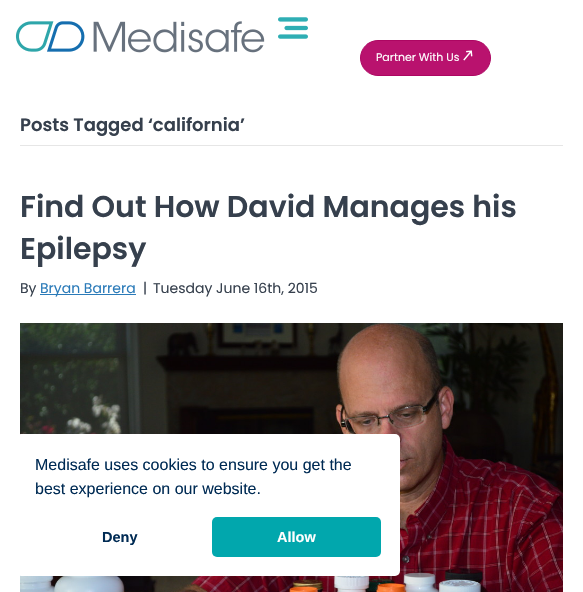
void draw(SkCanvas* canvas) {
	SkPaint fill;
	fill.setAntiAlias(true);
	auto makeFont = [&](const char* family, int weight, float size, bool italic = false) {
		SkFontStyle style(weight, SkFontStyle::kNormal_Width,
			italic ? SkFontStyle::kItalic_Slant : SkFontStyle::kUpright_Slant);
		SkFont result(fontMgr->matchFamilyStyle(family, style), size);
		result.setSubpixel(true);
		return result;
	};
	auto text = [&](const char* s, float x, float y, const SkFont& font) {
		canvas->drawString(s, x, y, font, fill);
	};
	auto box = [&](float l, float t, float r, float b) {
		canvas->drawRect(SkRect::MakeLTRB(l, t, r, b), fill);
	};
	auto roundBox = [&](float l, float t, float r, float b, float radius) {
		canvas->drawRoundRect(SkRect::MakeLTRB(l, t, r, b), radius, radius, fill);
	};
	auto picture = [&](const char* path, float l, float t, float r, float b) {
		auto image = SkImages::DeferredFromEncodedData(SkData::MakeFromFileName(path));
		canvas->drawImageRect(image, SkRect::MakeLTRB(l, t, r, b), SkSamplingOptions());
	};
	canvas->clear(0xFFFFFFFF);
	picture("image0.png", 15, 21, 265, 53);
	picture("image1.png", 278, 17, 308, 39);
	fill.setColor(0xFFB9126E);
	canvas->drawRoundRect(SkRect::MakeLTRB(360.5f, 40.5f, 490.5f, 75.5f), 17.5f, 17.5f, fill);
	fill.setStyle(SkPaint::kStroke_Style);
	fill.setStrokeWidth(1);
	fill.setColor(0xFFAD0662);
	canvas->drawRoundRect(SkRect::MakeLTRB(360.5f, 40.5f, 490.5f, 75.5f), 17.5f, 17.5f, fill);
	picture("image2.png", 463, 50, 473, 61);
	fill.setStyle(SkPaint::kFill_Style);
	fill.setColor(0xFFE6E6E6);
	box(20, 145, 563, 146);
	fill.setColor(0xFF2B7BB9);
	box(40, 294, 136, 295);
	picture("image3.png", 20, 323, 563, 592);
	fill.setColor(0xFFFFFFFF);
	roundBox(16, 434, 400, 576, 5);
	fill.setColor(0xFF01A7AD);
	roundBox(212, 517, 381, 557, 5);
	auto font1 = makeFont("Poppins", 400, 11);
	fill.setColor(0xFFFFFFFF);
	text("Partner With Us", 376, 61, font1);
	auto font2 = makeFont("Poppins", 600, 18);
	fill.setColor(0xFF36404D);
	text("Posts Tagged ‘california’", 20, 131, font2);
	auto font3 = makeFont("Poppins", 600, 30);
	text("Find Out How David Manages his", 20, 217, font3);
	text("Epilepsy", 20, 259, font3);
	auto font4 = makeFont("Poppins", 400, 14);
	text("By", 20, 293, font4);
	fill.setColor(0xFF2B7BB9);
	text("Bryan Barrera", 40, 293, font4);
	fill.setColor(0xFF36404D);
	text("|", 143, 293, font4);
	text("Tuesday June 16th, 2015", 153, 293, font4);
	auto font5 = makeFont("Liberation Sans", 400, 16);
	fill.setColor(0xFF002B54);
	text("Medisafe uses cookies to ensure you get the", 35, 470, font5);
	text("best experience on our website.", 35, 494, font5);
	auto font6 = makeFont("Liberation Sans", 700, 14.5f);
	text("Deny", 102, 542, font6);
	fill.setColor(0xFFFFFFFF);
	text("Allow", 277, 542, font6);
}
